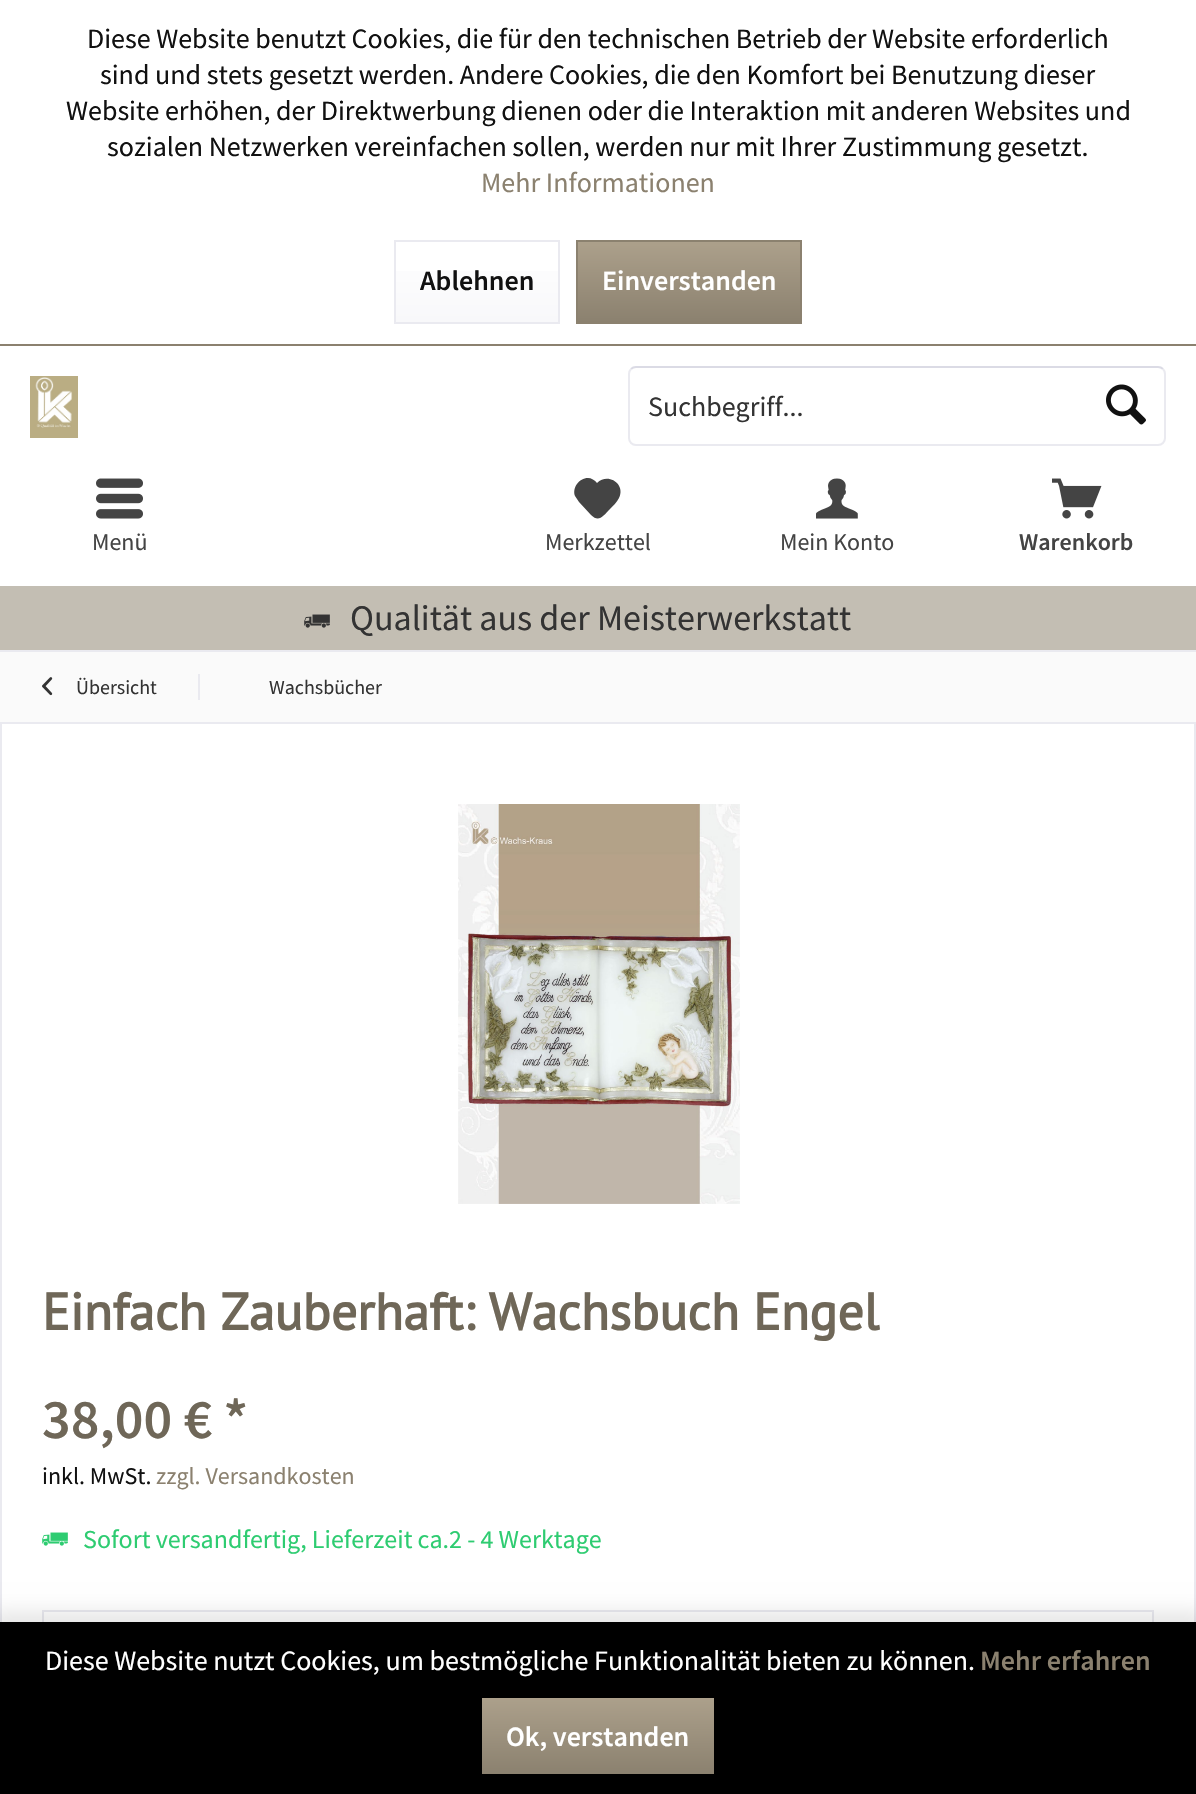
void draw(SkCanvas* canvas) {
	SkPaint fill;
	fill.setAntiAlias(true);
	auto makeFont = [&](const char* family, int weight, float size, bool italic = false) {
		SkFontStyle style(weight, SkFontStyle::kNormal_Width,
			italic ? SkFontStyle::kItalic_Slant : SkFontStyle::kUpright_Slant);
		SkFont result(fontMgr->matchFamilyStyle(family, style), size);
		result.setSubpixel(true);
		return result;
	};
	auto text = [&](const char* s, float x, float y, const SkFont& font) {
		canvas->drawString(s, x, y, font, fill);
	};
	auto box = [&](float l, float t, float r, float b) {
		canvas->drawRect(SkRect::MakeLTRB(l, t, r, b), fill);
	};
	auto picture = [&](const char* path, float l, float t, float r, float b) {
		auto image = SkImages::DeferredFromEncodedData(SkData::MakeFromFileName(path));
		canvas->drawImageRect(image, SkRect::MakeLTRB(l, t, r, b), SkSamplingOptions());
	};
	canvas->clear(0xFFFAFAFA);
	fill.setColor(0xFFFFFFFF);
	box(0, 0, 1196, 344);
	fill.setColor(0xFF8B816F);
	box(0, 344, 1196, 346);
	{
		const SkColor colors[] = {0xFFFFFFFF, 0xFFF8F8FA};
		const float stops[] = {0, 1};
		const SkPoint ends[] = {{477, 242}, {477, 322}};
		fill.setShader(SkGradientShader::MakeLinear(ends, colors, stops, 2, SkTileMode::kClamp));
		fill.setAlpha(255);
	}
	box(396, 271, 558, 322);
	fill.setStyle(SkPaint::kStroke_Style);
	fill.setStrokeWidth(2);
	fill.setShader(nullptr);
	fill.setColor(0xFFEAEAF0);
	canvas->drawRect(SkRect::MakeLTRB(395, 241, 559, 323), fill);
	fill.setStyle(SkPaint::kFill_Style);
	{
		const SkColor colors[] = {0xFFACA08B, 0xFF8B816F};
		const float stops[] = {0, 1};
		const SkPoint ends[] = {{689, 242}, {689, 322}};
		fill.setShader(SkGradientShader::MakeLinear(ends, colors, stops, 2, SkTileMode::kClamp));
		fill.setAlpha(255);
	}
	box(578, 242, 800, 322);
	fill.setStyle(SkPaint::kStroke_Style);
	fill.setShader(nullptr);
	fill.setColor(0xFF8B816F);
	canvas->drawRect(SkRect::MakeLTRB(577, 241, 801, 323), fill);
	fill.setStyle(SkPaint::kFill_Style);
	fill.setColor(0xFFFFFFFF);
	box(0, 346, 1196, 586);
	fill.setStyle(SkPaint::kStroke_Style);
	fill.setColor(0xFFDBDBE5);
	canvas->drawPath(SkPathBuilder().moveTo(631, 369).cubicTo(632.5f, 367.5f, 634, 367, 636, 367).lineTo(1158, 367).cubicTo(1160, 367, 1161.5f, 367.5f, 1163, 369).detach(), fill);
	fill.setColor(0xFFEAEAF0);
	canvas->drawPath(SkPathBuilder().moveTo(1163, 369).cubicTo(1164.5f, 370.5f, 1165, 372, 1165, 374).lineTo(1165, 438).cubicTo(1165, 440, 1164.5f, 441.5f, 1163, 443).cubicTo(1161.5f, 444.5f, 1160, 445, 1158, 445).lineTo(636, 445).cubicTo(634, 445, 632.5f, 444.5f, 631, 443).cubicTo(629.5f, 441.5f, 629, 440, 629, 438).lineTo(629, 374).cubicTo(629, 372, 629.5f, 370.5f, 631, 369).detach(), fill);
	picture("image0.png", 1106, 384, 1146, 425);
	picture("image1.png", 30, 376, 78, 438);
	picture("image2.png", 96, 478, 143, 519);
	fill.setStyle(SkPaint::kFill_Style);
	fill.setColor(0xFF444444);
	canvas->drawPath(SkPathBuilder().moveTo(588, 478).cubicTo(579, 478, 572, 488, 575, 496).lineTo(579, 502).lineTo(591, 515).cubicTo(599, 523, 603, 516, 610, 509).cubicTo(613, 506, 617, 502, 619, 498).cubicTo(626, 484, 608, 472, 597, 483).cubicTo(595, 480, 591, 478, 588, 478).close().detach(), fill);
	picture("image3.png", 816, 478, 858, 519);
	picture("image4.png", 1052, 478, 1102, 519);
	fill.setColor(0xFFC3BEB3);
	box(0, 586, 1196, 650);
	picture("image5.png", 304, 614, 330, 628);
	fill.setColor(0xFFEAEAF0);
	box(0, 650, 1196, 652);
	picture("image6.png", 42, 677, 53, 696);
	box(198, 674, 200, 700);
	fill.setColor(0xFFFFFFFF);
	box(2, 724, 1194, 1622);
	fill.setColor(0xFFEAEAF0);
	box(0, 722, 1196, 724);
	box(1194, 722, 1196, 1622);
	box(0, 722, 2, 1622);
	picture("image7.png", 458, 804, 740, 1204);
	picture("image8.png", 42, 1532, 68, 1546);
	fill.setStyle(SkPaint::kStroke_Style);
	canvas->drawRect(SkRect::MakeLTRB(43, 1611, 1153, 1741), fill);
	fill.setStyle(SkPaint::kFill_Style);
	fill.setColor(0x1A000000);
	fill.setMaskFilter(SkMaskFilter::MakeBlur(kNormal_SkBlurStyle, 10));
	canvas->drawRect(SkRect::MakeLTRB(-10, 1612, 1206, 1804), fill);
	fill.setMaskFilter(nullptr);
	fill.setColor(0xFF000000);
	box(0, 1622, 1196, 1794);
	{
		const SkColor colors[] = {0xFFACA08B, 0xFF8B816F};
		const float stops[] = {0, 1};
		const SkPoint ends[] = {{598, 1698}, {598, 1774}};
		fill.setShader(SkGradientShader::MakeLinear(ends, colors, stops, 2, SkTileMode::kClamp));
		fill.setAlpha(255);
	}
	box(482, 1698, 714, 1774);
	auto font1 = makeFont("Source Sans Pro", 400, 28);
	fill.setShader(nullptr);
	fill.setColor(0xFF111111);
	text("Diese Website benutzt Cookies, die für den technischen Betrieb der Website erforderlich", 87, 48, font1);
	text("sind und stets gesetzt werden. Andere Cookies, die den Komfort bei Benutzung dieser", 100, 84, font1);
	text("Website erhöhen, der Direktwerbung dienen oder die Interaktion mit anderen Websites und", 66, 120, font1);
	text("sozialen Netzwerken vereinfachen sollen, werden nur mit Ihrer Zustimmung gesetzt.", 107, 156, font1);
	fill.setColor(0xFF8B816F);
	text("Mehr Informationen", 481, 192, font1);
	auto font2 = makeFont("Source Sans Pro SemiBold", 600, 28);
	fill.setColor(0xFF111111);
	text("Ablehnen", 420, 290, font2);
	fill.setColor(0xFFFFFFFF);
	text("Einverstanden", 602, 290, font2);
	fill.setColor(0xFF333333);
	text("Suchbegriff...", 648, 416, font1);
	auto font3 = makeFont("Source Sans Pro", 400, 24);
	fill.setColor(0xFF444444);
	text("Menü", 92, 550, font3);
	text("Merkzettel", 545, 550, font3);
	text("Mein Konto", 780, 550, font3);
	auto font4 = makeFont("Source Sans Pro SemiBold", 600, 24);
	text("Warenkorb", 1019, 550, font4);
	auto font5 = makeFont("Source Sans Pro", 400, 36);
	fill.setColor(0xFF333333);
	text("Qualität aus der Meisterwerkstatt", 350, 630, font5);
	auto font6 = makeFont("Source Sans Pro", 400, 20);
	text("Übersicht", 76, 694, font6);
	text("Wachsbücher", 269, 694, font6);
	auto font7 = makeFont("PT Sans", 700, 52);
	fill.setColor(0xFF6F6758);
	text("Einfach Zauberhaft: Wachsbuch Engel", 42, 1330, font7);
	auto font8 = makeFont("Source Sans Pro SemiBold", 600, 56);
	text("38,00 € *", 42, 1438, font8);
	fill.setColor(0xFF111111);
	text("inkl. MwSt.", 42, 1484, font3);
	fill.setColor(0xFF8B816F);
	text("zzgl. Versandkosten", 156, 1484, font3);
	auto font9 = makeFont("Source Sans Pro", 400, 26);
	fill.setColor(0xFF2ECC71);
	text("Sofort versandfertig, Lieferzeit ca.2 - 4 Werktage", 83, 1548, font9);
	fill.setColor(0xFFFFFFFF);
	text("Diese Website nutzt Cookies, um bestmögliche Funktionalität bieten zu können.", 45, 1670, font1);
	fill.setColor(0xFF8B816F);
	text("Mehr erfahren", 980, 1670, font2);
	fill.setColor(0xFFFFFFFF);
	text("Ok, verstanden", 506, 1746, font2);
}
